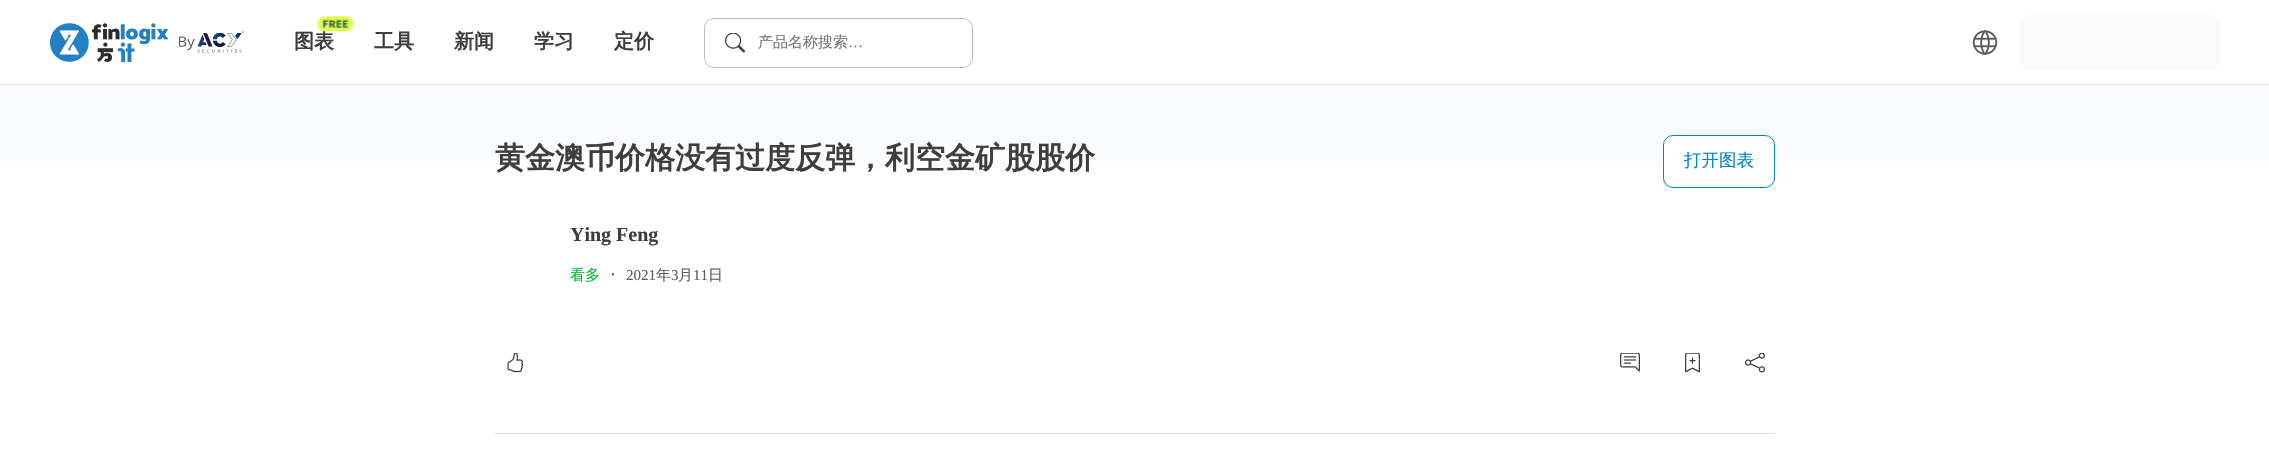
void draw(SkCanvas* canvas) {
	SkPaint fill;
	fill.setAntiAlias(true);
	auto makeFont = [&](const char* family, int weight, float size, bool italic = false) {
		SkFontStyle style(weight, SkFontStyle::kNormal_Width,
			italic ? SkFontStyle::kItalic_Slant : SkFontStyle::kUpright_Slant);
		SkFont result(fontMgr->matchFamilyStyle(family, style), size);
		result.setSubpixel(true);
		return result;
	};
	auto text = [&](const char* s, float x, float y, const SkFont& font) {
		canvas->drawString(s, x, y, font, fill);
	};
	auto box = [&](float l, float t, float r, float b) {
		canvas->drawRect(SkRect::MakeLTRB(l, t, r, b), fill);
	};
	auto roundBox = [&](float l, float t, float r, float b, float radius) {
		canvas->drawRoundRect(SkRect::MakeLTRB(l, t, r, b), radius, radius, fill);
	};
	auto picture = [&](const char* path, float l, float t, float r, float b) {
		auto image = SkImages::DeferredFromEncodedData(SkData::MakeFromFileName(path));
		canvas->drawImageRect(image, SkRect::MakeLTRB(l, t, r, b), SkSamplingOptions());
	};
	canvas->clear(0xFFFFFFFF);
	fill.setColor(0xFFE2E5E7);
	box(0, 84, 2269, 85);
	picture("image0.png", 50, 23, 169, 63);
	picture("image1.png", 179, 31, 244, 53);
	fill.setStyle(SkPaint::kStroke_Style);
	fill.setStrokeWidth(1);
	fill.setColor(0xFFBBBBBB);
	canvas->drawRoundRect(SkRect::MakeLTRB(704.5f, 18.5f, 972.5f, 67.5f), 9.5f, 9.5f, fill);
	picture("image3.png", 725, 33, 745, 53);
	picture("image4.png", 1972, 30, 1998, 55);
	fill.setStyle(SkPaint::kFill_Style);
	fill.setColor(0xFFFAFAFA);
	roundBox(2020, 15, 2220, 70, 10);
	{
		const SkColor colors[] = {0xFFF8FAFD, 0xFFFFFFFF};
		const float stops[] = {0.07f, 0.18f};
		const SkPoint ends[] = {{1135, 85}, {1135, 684}};
		fill.setShader(SkGradientShader::MakeLinear(ends, colors, stops, 2, SkTileMode::kClamp));
		fill.setAlpha(255);
	}
	box(0, 85, 2269, 169);
	fill.setShader(nullptr);
	fill.setColor(0xFFFFFFFF);
	canvas->drawRoundRect(SkRect::MakeLTRB(1663.5f, 135.5f, 1774.5f, 187.5f), 9.5f, 9.5f, fill);
	fill.setStyle(SkPaint::kStroke_Style);
	fill.setColor(0xFF0282D0);
	canvas->drawRoundRect(SkRect::MakeLTRB(1663.5f, 135.5f, 1774.5f, 187.5f), 9.5f, 9.5f, fill);
	picture("image5.png", 507, 353, 524, 373);
	picture("image6.png", 1620, 353, 1640, 372);
	picture("image7.png", 1685, 353, 1700, 373);
	picture("image8.png", 1745, 353, 1765, 373);
	fill.setStyle(SkPaint::kFill_Style);
	fill.setColor(0xFFDDDDDD);
	box(495, 433, 1775, 434);
	auto font1 = makeFont("WenQuanYi Zen Hei", 700, 20);
	fill.setColor(0xFF3E3E3E);
	text("图表", 294, 48, font1);
	picture("image2.png", 317, 16, 355, 32);
	text("工具", 374, 48, font1);
	text("新闻", 454, 48, font1);
	text("学习", 534, 48, font1);
	text("定价", 614, 48, font1);
	auto font2 = makeFont("WenQuanYi Zen Hei", 500, 15);
	fill.setColor(0xFF757575);
	text("产品名称搜索", 758, 47, font2);
	auto font3 = makeFont("Liberation Serif", 400, 15);
	text("…", 848, 47, font3);
	auto font4 = makeFont("WenQuanYi Zen Hei", 700, 30);
	fill.setColor(0xFF3E3E3E);
	text("黄金澳币价格没有过度反弹，利空金矿股股价", 495, 168, font4);
	auto font5 = makeFont("WenQuanYi Zen Hei", 500, 17.5f);
	fill.setColor(0xFF0282D0);
	text("打开图表", 1684, 166, font5);
	auto font6 = makeFont("Liberation Serif", 700, 20);
	fill.setColor(0xFF3E3E3E);
	text("Ying Feng", 570, 241, font6);
	fill.setColor(0xFF00BA34);
	text("看多", 570, 280, font2);
	auto font7 = makeFont("Liberation Serif", 400, 17.5f);
	fill.setColor(0xFF3E3E3E);
	text("·", 610, 280, font7);
	fill.setColor(0xFF5C5C5C);
	text("2021", 626, 280, font3);
	text("年", 656, 280, font2);
	text("3", 671, 280, font3);
	text("月", 678, 280, font2);
	text("11", 693, 280, font3);
	text("日", 708, 280, font2);
}
